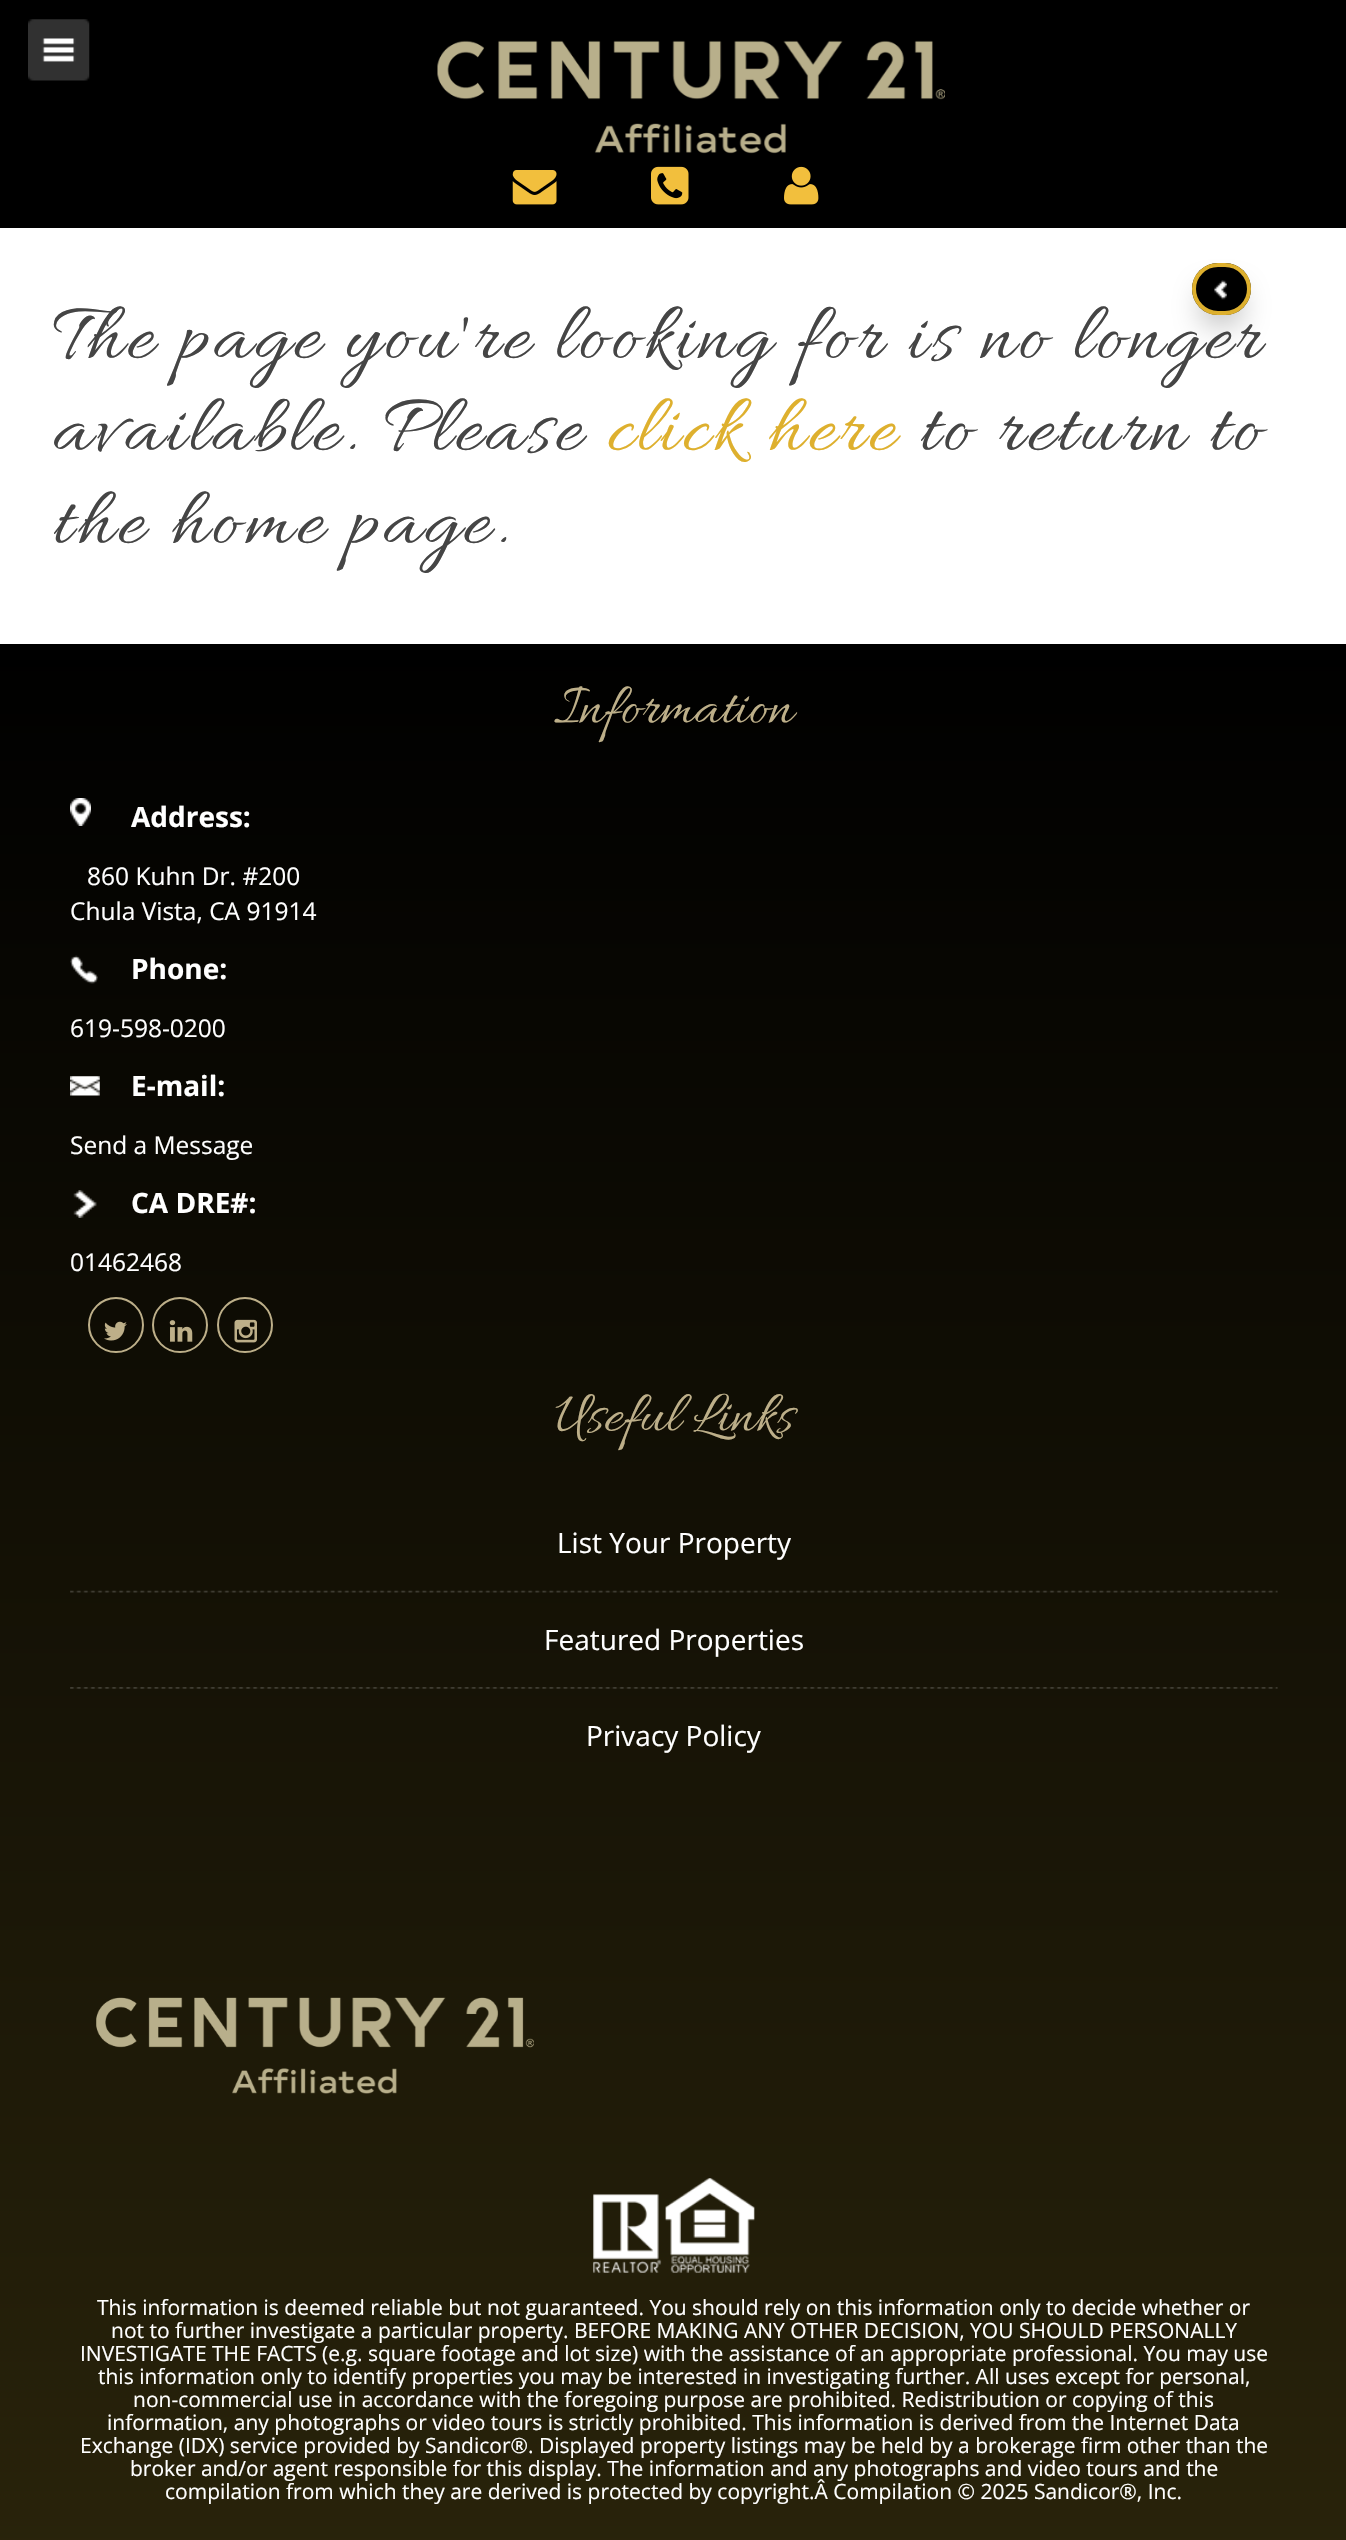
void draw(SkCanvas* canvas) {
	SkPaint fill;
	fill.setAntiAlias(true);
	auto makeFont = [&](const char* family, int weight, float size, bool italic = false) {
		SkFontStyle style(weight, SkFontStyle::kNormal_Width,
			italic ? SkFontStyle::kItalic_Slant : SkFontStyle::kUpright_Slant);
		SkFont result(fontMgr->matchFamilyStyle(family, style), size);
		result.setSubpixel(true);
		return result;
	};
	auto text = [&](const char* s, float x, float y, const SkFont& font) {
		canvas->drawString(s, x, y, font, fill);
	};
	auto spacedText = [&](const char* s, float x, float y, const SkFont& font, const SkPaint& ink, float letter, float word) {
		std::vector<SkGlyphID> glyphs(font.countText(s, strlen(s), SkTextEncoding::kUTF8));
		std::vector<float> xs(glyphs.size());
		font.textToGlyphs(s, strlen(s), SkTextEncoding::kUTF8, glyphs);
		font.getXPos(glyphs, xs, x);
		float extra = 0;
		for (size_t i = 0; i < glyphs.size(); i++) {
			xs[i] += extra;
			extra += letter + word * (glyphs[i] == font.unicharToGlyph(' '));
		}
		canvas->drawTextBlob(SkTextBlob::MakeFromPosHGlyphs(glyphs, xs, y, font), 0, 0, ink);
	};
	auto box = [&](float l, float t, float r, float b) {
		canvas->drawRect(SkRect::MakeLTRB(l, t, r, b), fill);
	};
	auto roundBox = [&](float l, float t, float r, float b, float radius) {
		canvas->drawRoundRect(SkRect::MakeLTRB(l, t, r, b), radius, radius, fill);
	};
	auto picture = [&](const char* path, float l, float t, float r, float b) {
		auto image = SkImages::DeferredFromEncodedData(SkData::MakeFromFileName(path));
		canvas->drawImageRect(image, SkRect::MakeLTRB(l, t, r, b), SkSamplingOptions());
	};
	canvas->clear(0xFFFFFFFF);
	fill.setColor(0xFF000000);
	box(0, 0, 1346, 228);
	picture("image0.png", 28, 19, 90, 81);
	picture("image1.png", 437, 40, 945, 154);
	picture("image2.png", 512, 170, 557, 205);
	picture("image3.png", 651, 166, 689, 205);
	picture("image4.png", 784, 166, 819, 205);
	fill.setMaskFilter(SkMaskFilter::MakeBlur(kNormal_SkBlurStyle, 17.5f));
	canvas->drawRoundRect(SkRect::MakeLTRB(1209, 298, 1234, 315), 8.5f, 8.5f, fill);
	fill.setMaskFilter(nullptr);
	{
		const SkColor colors[] = {0xFF000000, 0xFF2A240B};
		const float stops[] = {0, 1};
		const SkPoint ends[] = {{674, 644}, {674, 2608}};
		fill.setShader(SkGradientShader::MakeLinear(ends, colors, stops, 2, SkTileMode::kClamp));
		fill.setAlpha(255);
	}
	box(0, 644, 1346, 2540);
	picture("image6.png", 70, 798, 91, 826);
	picture("image7.png", 70, 955, 98, 984);
	picture("image8.png", 70, 1076, 100, 1096);
	picture("image9.png", 73, 1190, 97, 1218);
	fill.setStyle(SkPaint::kStroke_Style);
	fill.setStrokeWidth(2);
	fill.setShader(nullptr);
	fill.setColor(0xFFBDAF89);
	canvas->drawCircle(116, 1325, 27, fill);
	picture("image10.png", 104, 1321, 127, 1341);
	canvas->drawCircle(180, 1325, 27, fill);
	picture("image11.png", 169, 1320, 193, 1342);
	canvas->drawCircle(245, 1325, 27, fill);
	picture("image12.png", 234, 1319, 257, 1343);
	picture("image13.png", 70, 1590, 1278, 1593);
	picture("image14.png", 70, 1687, 1278, 1689);
	picture("image15.png", 96, 1997, 534, 2094);
	picture("image16.png", 593, 2178, 755, 2273);
	auto font1 = makeFont("Allura", 400, 84);
	fill.setStyle(SkPaint::kFill_Style);
	fill.setColor(0xFF454545);
	spacedText("The page you're looking for is no longer", 53, 357, font1, fill, 3.5f, 0);
	fill.setColor(0xFF000000);
	roundBox(1192, 263, 1251, 315, 26);
	picture("image5.png", 1214, 280, 1227, 300);
	fill.setStyle(SkPaint::kStroke_Style);
	fill.setStrokeWidth(4);
	fill.setColor(0xFFDEB02E);
	canvas->drawRoundRect(SkRect::MakeLTRB(1194, 265, 1249, 313), 24, 24, fill);
	fill.setStyle(SkPaint::kFill_Style);
	fill.setColor(0xFF454545);
	spacedText("available. Please", 53, 449, font1, fill, 3.5f, 0);
	fill.setColor(0xFFDEB02E);
	spacedText("click here", 607, 449, font1, fill, 3.5f, 0);
	fill.setColor(0xFF454545);
	spacedText("to return to", 920, 449, font1, fill, 3.5f, 0);
	spacedText("the home page.", 53, 542, font1, fill, 3.5f, 0);
	auto font2 = makeFont("Allura", 400, 59.5f);
	fill.setColor(0xFFBDAF89);
	text("Information", 554, 722, font2);
	auto font3 = makeFont("Open Sans", 700, 28);
	fill.setColor(0xFFFFFFFF);
	text("Address:", 131, 827, font3);
	auto font4 = makeFont("Open Sans", 400, 24.5f);
	text("860 Kuhn Dr. #200", 87, 885, font4);
	text("Chula Vista, CA 91914", 70, 920, font4);
	text("Phone:", 131, 979, font3);
	text("619-598-0200", 70, 1037, font4);
	text("E-mail:", 131, 1096, font3);
	text("Send a Message", 70, 1154, font4);
	text("CA DRE#:", 131, 1213, font3);
	text("01462468", 70, 1271, font4);
	fill.setColor(0xFFBDAF89);
	text("Useful Links", 555, 1430, font2);
	auto font5 = makeFont("Open Sans", 400, 28);
	fill.setColor(0xFFFFFFFF);
	text("List Your Property", 557, 1553, font5);
	text("Featured Properties", 544, 1650, font5);
	text("Privacy Policy", 586, 1746, font5);
	auto font6 = makeFont("Open Sans", 400, 21);
	text("This information is deemed reliable but not guaranteed. You should rely on this information only to decide whether or", 97, 2315, font6);
	text("not to further investigate a particular property. BEFORE MAKING ANY OTHER DECISION, YOU SHOULD PERSONALLY", 111, 2338, font6);
	text("INVESTIGATE THE FACTS (e.g. square footage and lot size) with the assistance of an appropriate professional. You may use", 80, 2361, font6);
	text("this information only to identify properties you may be interested in investigating further. All uses except for personal,", 98, 2384, font6);
	text("non-commercial use in accordance with the foregoing purpose are prohibited. Redistribution or copying of this", 133, 2407, font6);
	text("information, any photographs or video tours is strictly prohibited. This information is derived from the Internet Data", 107, 2430, font6);
	text("Exchange (IDX) service provided by Sandicor®. Displayed property listings may be held by a brokerage firm other than the", 80, 2453, font6);
	text("broker and/or agent responsible for this display. The information and any photographs and video tours and the", 130, 2476, font6);
	text("compilation from which they are derived is protected by copyright.Â Compilation © 2025 Sandicor®, Inc.", 165, 2499, font6);
}
